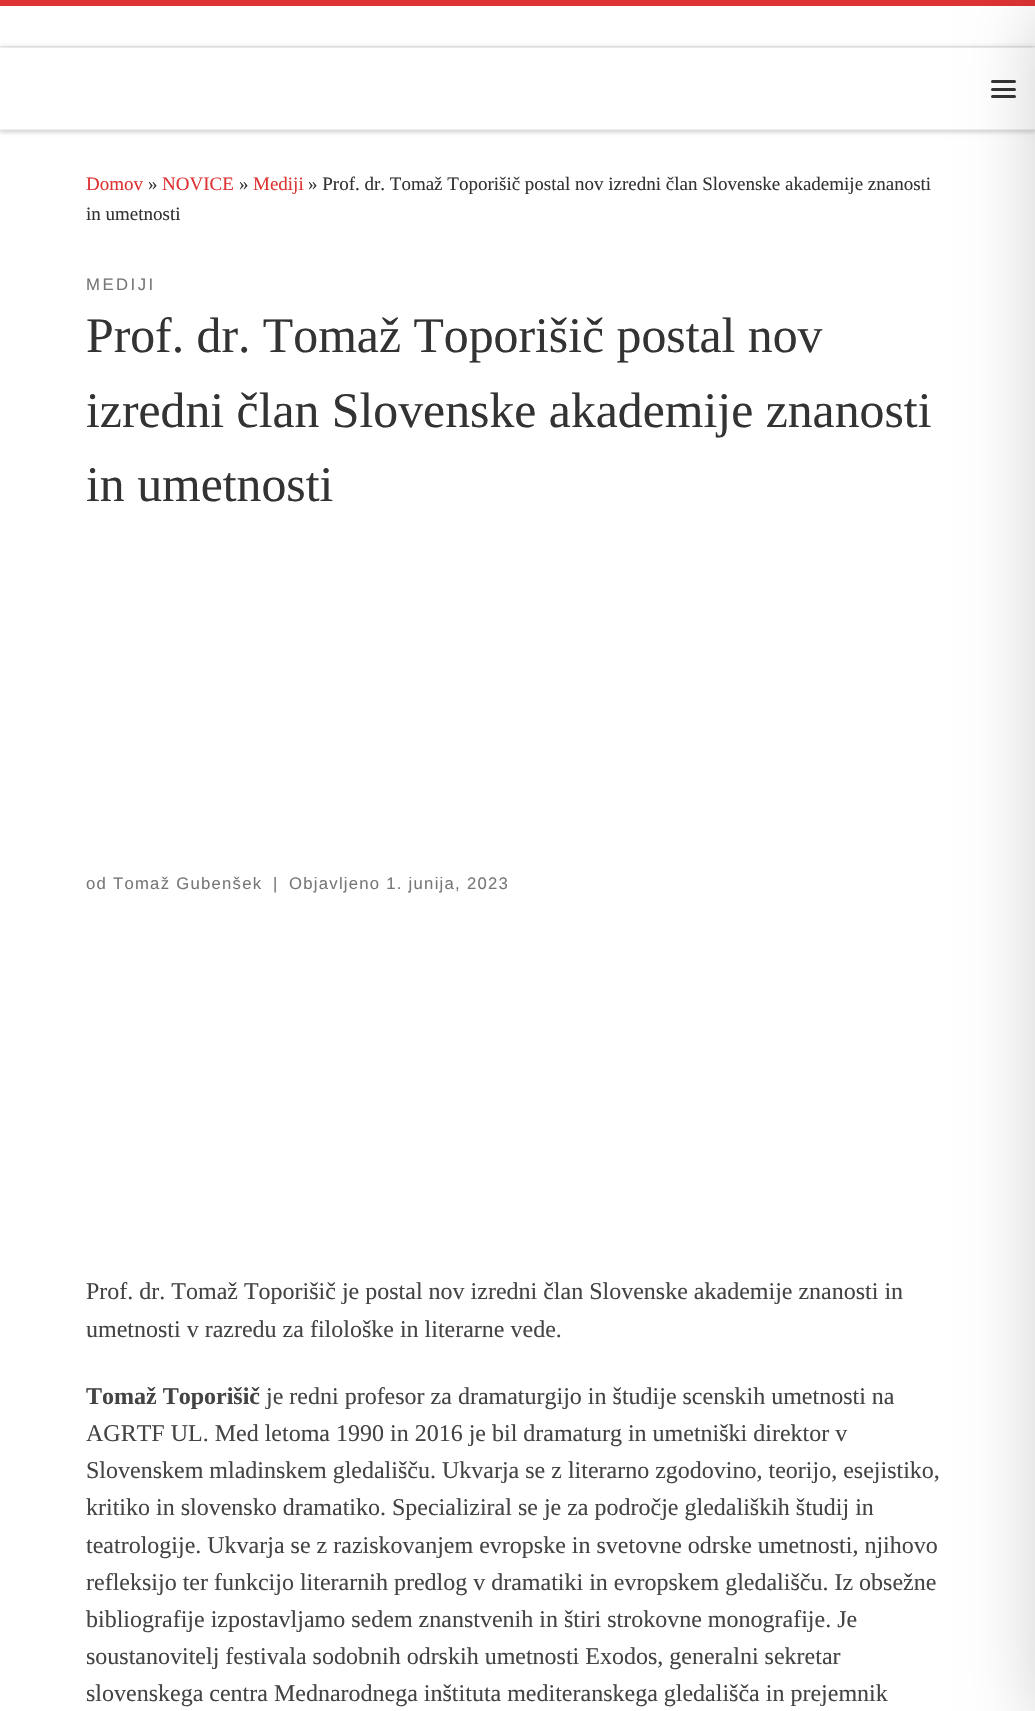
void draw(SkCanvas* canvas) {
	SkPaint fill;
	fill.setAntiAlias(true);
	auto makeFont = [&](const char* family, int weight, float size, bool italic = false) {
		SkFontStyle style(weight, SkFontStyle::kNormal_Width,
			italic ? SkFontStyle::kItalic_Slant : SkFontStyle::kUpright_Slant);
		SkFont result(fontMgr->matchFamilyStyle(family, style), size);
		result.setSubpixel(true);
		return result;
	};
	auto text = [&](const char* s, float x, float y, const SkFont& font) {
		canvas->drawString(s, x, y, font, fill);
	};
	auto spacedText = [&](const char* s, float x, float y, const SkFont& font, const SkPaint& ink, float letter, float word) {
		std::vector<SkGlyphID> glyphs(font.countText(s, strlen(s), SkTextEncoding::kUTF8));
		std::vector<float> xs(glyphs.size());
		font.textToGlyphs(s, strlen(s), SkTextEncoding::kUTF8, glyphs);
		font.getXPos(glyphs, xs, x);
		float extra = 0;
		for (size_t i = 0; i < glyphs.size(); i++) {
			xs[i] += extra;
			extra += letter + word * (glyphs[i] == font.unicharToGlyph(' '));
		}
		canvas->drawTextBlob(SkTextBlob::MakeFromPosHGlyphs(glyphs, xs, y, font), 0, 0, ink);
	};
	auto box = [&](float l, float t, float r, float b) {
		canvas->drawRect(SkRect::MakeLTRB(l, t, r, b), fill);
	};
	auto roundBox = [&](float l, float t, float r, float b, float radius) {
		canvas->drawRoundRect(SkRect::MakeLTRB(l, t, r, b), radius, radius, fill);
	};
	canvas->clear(0xFFFFFFFF);
	canvas->save();
	canvas->clipRect(SkRect::MakeLTRB(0, 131, 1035, 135));
	fill.setColor(0x14666666);
	fill.setMaskFilter(SkMaskFilter::MakeBlur(kNormal_SkBlurStyle, 1));
	canvas->drawRect(SkRect::MakeLTRB(0, 3, 1035, 134), fill);
	fill.setMaskFilter(nullptr);
	canvas->restore();
	fill.setColor(0xFFDD3333);
	box(0, 0, 1035, 6);
	fill.setColor(0xFFF0F0F0);
	box(0, 130, 1035, 131);
	fill.setColor(0xFFEDEDED);
	box(0, 46, 1035, 47);
	canvas->save();
	canvas->clipPath(SkPathBuilder(SkPathFillType::kEvenOdd).moveTo(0, 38).lineTo(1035, 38).lineTo(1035, 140).lineTo(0, 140).close().moveTo(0, 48).lineTo(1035, 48).lineTo(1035, 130).lineTo(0, 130).close().detach(), true);
	fill.setColor(0x33000000);
	fill.setMaskFilter(SkMaskFilter::MakeBlur(kNormal_SkBlurStyle, 3));
	canvas->drawRect(SkRect::MakeLTRB(0, 48, 1035, 130), fill);
	fill.setMaskFilter(nullptr);
	canvas->restore();
	fill.setColor(0xFF353535);
	roundBox(991, 80, 1016, 83, 1.5f);
	roundBox(991, 88, 1016, 91, 1.5f);
	roundBox(991, 95, 1016, 98, 1.5f);
	fill.setColor(0xFFF0F0F0);
	box(0, 129, 1035, 130);
	fill.setColor(0x33000000);
	fill.setMaskFilter(SkMaskFilter::MakeBlur(kNormal_SkBlurStyle, 37.5f));
	canvas->drawRect(SkRect::MakeLTRB(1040, 13, 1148, 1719), fill);
	fill.setMaskFilter(nullptr);
	auto font1 = makeFont("Liberation Serif", 400, 19);
	fill.setColor(0xFFDD3333);
	text("Domov", 86, 190, font1);
	fill.setColor(0xFF333333);
	text("»", 148, 190, font1);
	fill.setColor(0xFFDD3333);
	text("NOVICE", 162, 190, font1);
	fill.setColor(0xFF333333);
	text("»", 239, 190, font1);
	fill.setColor(0xFFDD3333);
	text("Mediji", 253, 190, font1);
	fill.setColor(0xFF333333);
	text("» Prof. dr. Tomaž Toporišič postal nov izredni član Slovenske akademije znanosti", 308, 190, font1);
	text("in umetnosti", 86, 220, font1);
	auto font2 = makeFont("Liberation Sans", 400, 16.7f);
	fill.setColor(0xFF777777);
	spacedText("MEDIJI", 86, 290, font2, fill, 2.5f, 0);
	auto font3 = makeFont("Liberation Serif", 400, 49.75f);
	fill.setColor(0xFF333333);
	text("Prof. dr. Tomaž Toporišič postal nov", 86, 352, font3);
	text("izredni član Slovenske akademije znanosti", 86, 427, font3);
	text("in umetnosti", 86, 501, font3);
	fill.setColor(0xFF777777);
	spacedText("od Tomaž Gubenšek", 86, 889, font2, fill, 1.25f, 0);
	spacedText("|", 273, 889, font2, fill, 1.25f, 0);
	spacedText("Objavljeno 1. junija, 2023", 289, 889, font2, fill, 1.25f, 0);
	auto font4 = makeFont("Liberation Serif", 400, 24);
	fill.setColor(0xFF444444);
	text("Prof. dr. Tomaž Toporišič je postal nov izredni član Slovenske akademije znanosti in", 86, 1299, font4);
	text("umetnosti v razredu za filološke in literarne vede.", 86, 1337, font4);
	auto font5 = makeFont("Liberation Serif", 700, 24);
	text("Tomaž Toporišič", 86, 1404, font5);
	text("je redni profesor za dramaturgijo in študije scenskih umetnosti na", 266, 1404, font4);
	text("AGRTF UL. Med letoma 1990 in 2016 je bil dramaturg in umetniški direktor v", 86, 1441, font4);
	text("Slovenskem mladinskem gledališču. Ukvarja se z literarno zgodovino, teorijo, esejistiko,", 86, 1478, font4);
	text("kritiko in slovensko dramatiko. Specializiral se je za področje gledaliških študij in", 86, 1515, font4);
	text("teatrologije. Ukvarja se z raziskovanjem evropske in svetovne odrske umetnosti, njihovo", 86, 1553, font4);
	text("refleksijo ter funkcijo literarnih predlog v dramatiki in evropskem gledališču. Iz obsežne", 86, 1590, font4);
	text("bibliografije izpostavljamo sedem znanstvenih in štiri strokovne monografije. Je", 86, 1627, font4);
	text("soustanovitelj festivala sodobnih odrskih umetnosti Exodos, generalni sekretar", 86, 1664, font4);
	text("slovenskega centra Mednarodnega inštituta mediteranskega gledališča in prejemnik", 86, 1701, font4);
}
